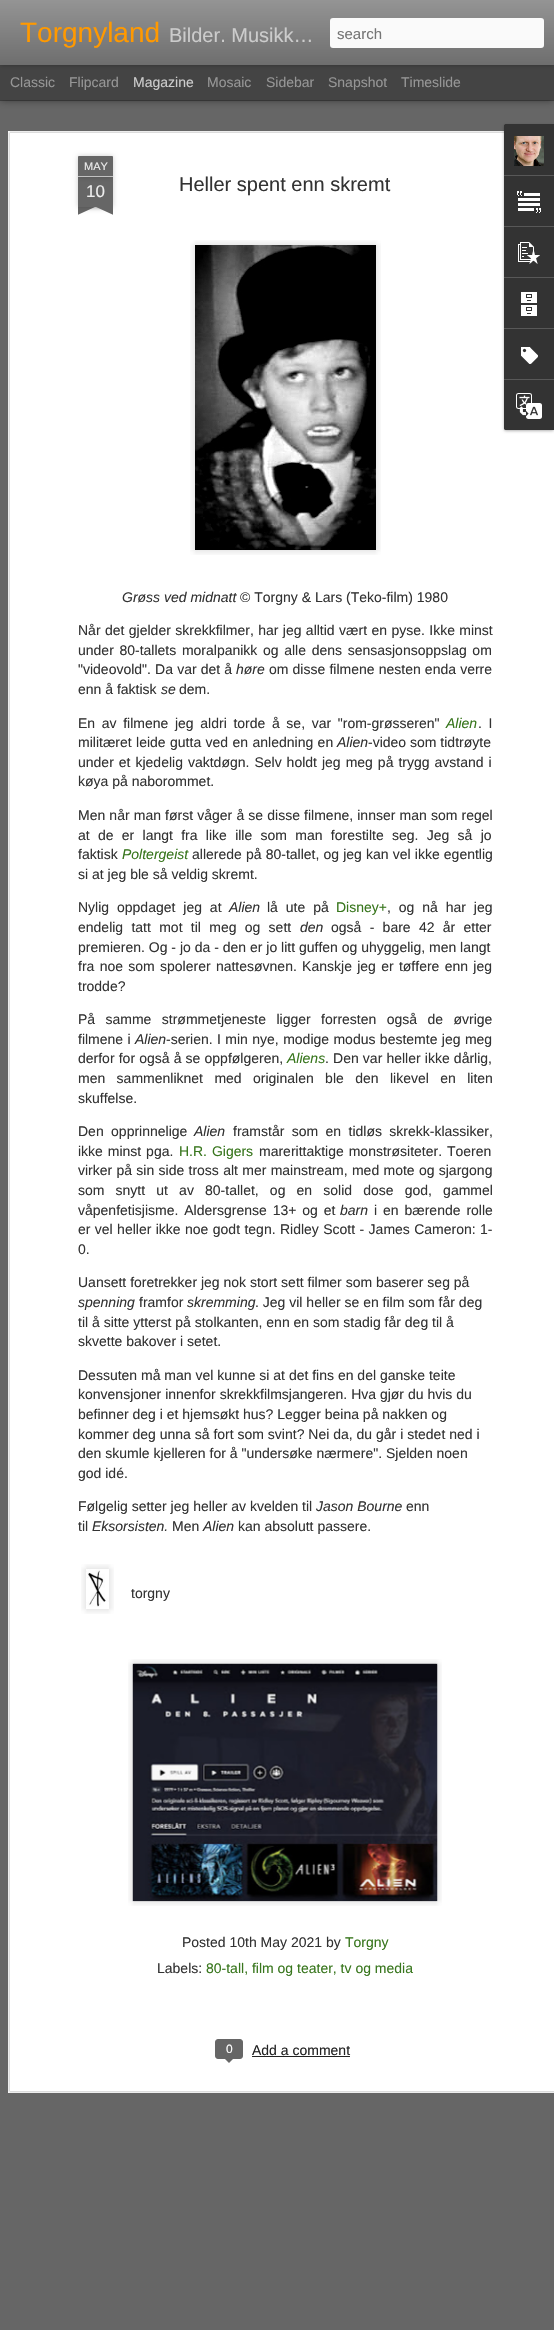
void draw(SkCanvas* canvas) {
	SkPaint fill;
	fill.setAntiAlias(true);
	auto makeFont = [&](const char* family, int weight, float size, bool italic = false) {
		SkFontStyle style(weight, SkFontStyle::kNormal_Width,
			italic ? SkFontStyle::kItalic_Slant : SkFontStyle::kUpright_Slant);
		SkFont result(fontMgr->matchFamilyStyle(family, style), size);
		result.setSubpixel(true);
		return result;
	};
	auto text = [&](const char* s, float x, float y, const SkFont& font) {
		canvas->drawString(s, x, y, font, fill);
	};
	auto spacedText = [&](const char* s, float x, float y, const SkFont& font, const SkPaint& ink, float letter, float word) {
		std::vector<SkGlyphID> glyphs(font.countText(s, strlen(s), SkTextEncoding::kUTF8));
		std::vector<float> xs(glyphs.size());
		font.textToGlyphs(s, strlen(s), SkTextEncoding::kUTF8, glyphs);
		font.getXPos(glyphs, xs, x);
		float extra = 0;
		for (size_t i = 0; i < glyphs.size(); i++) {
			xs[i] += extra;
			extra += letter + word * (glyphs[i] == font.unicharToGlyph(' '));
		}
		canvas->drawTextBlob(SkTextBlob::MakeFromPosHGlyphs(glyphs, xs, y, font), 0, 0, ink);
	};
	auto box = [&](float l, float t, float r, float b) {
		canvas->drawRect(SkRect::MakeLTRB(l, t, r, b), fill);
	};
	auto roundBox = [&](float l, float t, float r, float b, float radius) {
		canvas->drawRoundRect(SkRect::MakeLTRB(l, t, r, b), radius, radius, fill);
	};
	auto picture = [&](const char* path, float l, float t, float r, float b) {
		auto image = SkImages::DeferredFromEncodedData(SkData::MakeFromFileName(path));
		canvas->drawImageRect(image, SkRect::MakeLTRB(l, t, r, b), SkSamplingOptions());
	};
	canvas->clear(0xFF444444);
	fill.setColor(0xFF666666);
	box(0, 101, 554, 2330);
	fill.setColor(0x80000000);
	fill.setMaskFilter(SkMaskFilter::MakeBlur(kNormal_SkBlurStyle, 4));
	canvas->drawRect(SkRect::MakeLTRB(0, 65, 554, 100), fill);
	fill.setMaskFilter(nullptr);
	fill.setColor(0xFF444444);
	box(0, 65, 554, 100);
	fill.setColor(0x4D000000);
	fill.setMaskFilter(SkMaskFilter::MakeBlur(kNormal_SkBlurStyle, 2.5f));
	canvas->drawRect(SkRect::MakeLTRB(0, 0, 554, 65), fill);
	fill.setMaskFilter(nullptr);
	{
		const SkColor colors[] = {0xFF949494, 0xFF6E6E6E};
		const float stops[] = {0, 1};
		const SkPoint ends[] = {{0, 0}, {0, 65}};
		fill.setShader(SkGradientShader::MakeLinear(ends, colors, stops, 2, SkTileMode::kClamp));
		fill.setAlpha(255);
	}
	box(0, 0, 554, 65);
	fill.setShader(nullptr);
	fill.setColor(0xFFFAFAFA);
	roundBox(330, 18, 544, 48, 3);
	fill.setColor(0xFFFFFFFF);
	box(8, 131, 554, 2093);
	picture("image0.png", 8, 131, 554, 2093);
	fill.setColor(0x33000000);
	fill.setMaskFilter(SkMaskFilter::MakeBlur(kNormal_SkBlurStyle, 2.5f));
	canvas->drawRect(SkRect::MakeLTRB(78, 177, 113, 207), fill);
	fill.setMaskFilter(nullptr);
	fill.setColor(0xFF666666);
	box(78, 177, 113, 207);
	fill.setColor(0x33000000);
	fill.setMaskFilter(SkMaskFilter::MakeBlur(kNormal_SkBlurStyle, 2.5f));
	canvas->drawRoundRect(SkRect::MakeLTRB(78, 156, 113, 177), 1, 1, fill);
	fill.setMaskFilter(nullptr);
	fill.setColor(0xFF666666);
	canvas->drawPath(SkPathBuilder().moveTo(79, 156).lineTo(112, 156).cubicTo(112.5f, 156, 113, 156.5f, 113, 157).lineTo(113, 177).lineTo(78, 177).lineTo(78, 157).cubicTo(78, 156.5f, 78.5f, 156, 79, 156).close().detach(), fill);
	fill.setColor(0xFFC2C2C2);
	box(78, 176, 113, 177);
	canvas->save();
	canvas->clipRect(SkRect::MakeLTRB(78, 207, 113, 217));
	fill.setColor(0x33000000);
	fill.setMaskFilter(SkMaskFilter::MakeBlur(kNormal_SkBlurStyle, 2.5f));
	canvas->drawRect(SkRect::MakeLTRB(69, 197, 119, 207), fill);
	fill.setMaskFilter(nullptr);
	canvas->restore();
	canvas->save();
	canvas->clipRect(SkRect::MakeLTRB(78, 207, 113, 217));
	fill.setColor(0xFF666666);
	canvas->drawPath(SkPathBuilder().moveTo(69, 208).lineTo(115, 187).lineTo(119, 196).lineTo(73, 217).close().detach(), fill);
	canvas->restore();
	canvas->save();
	canvas->clipRect(SkRect::MakeLTRB(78, 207, 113, 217));
	fill.setColor(0x33000000);
	fill.setMaskFilter(SkMaskFilter::MakeBlur(kNormal_SkBlurStyle, 2.5f));
	canvas->drawRect(SkRect::MakeLTRB(72, 197, 122, 207), fill);
	fill.setMaskFilter(nullptr);
	canvas->restore();
	canvas->save();
	canvas->clipRect(SkRect::MakeLTRB(78, 207, 113, 217));
	fill.setColor(0xFF666666);
	canvas->drawPath(SkPathBuilder().moveTo(76, 187).lineTo(122, 208).lineTo(118, 217).lineTo(72, 196).close().detach(), fill);
	canvas->restore();
	picture("image1.png", 190, 240, 381, 555);
	picture("image2.png", 81, 1564, 114, 1614);
	picture("image3.png", 88, 1570, 106, 1607);
	picture("image4.png", 128, 1659, 442, 1906);
	picture("image5.png", 132, 1663, 438, 1902);
	canvas->drawRoundRect(SkRect::MakeLTRB(215.5f, 2039.5f, 242.5f, 2058.5f), 2.5f, 2.5f, fill);
	fill.setStyle(SkPaint::kStroke_Style);
	fill.setStrokeWidth(1);
	canvas->drawRoundRect(SkRect::MakeLTRB(215.5f, 2039.5f, 242.5f, 2058.5f), 2.5f, 2.5f, fill);
	fill.setStyle(SkPaint::kFill_Style);
	canvas->drawPath(SkPathBuilder().moveTo(224, 2058).lineTo(234, 2058).lineTo(229, 2063).close().detach(), fill);
	fill.setColor(0xFF222222);
	box(252, 2056, 350, 2057);
	fill.setColor(0x4D000000);
	fill.setMaskFilter(SkMaskFilter::MakeBlur(kNormal_SkBlurStyle, 1.5f));
	canvas->drawRoundRect(SkRect::MakeLTRB(504, 125, 554, 431), 2, 2, fill);
	fill.setMaskFilter(nullptr);
	fill.setColor(0xFF333333);
	canvas->drawPath(SkPathBuilder().moveTo(506, 124).lineTo(554, 124).lineTo(554, 430).lineTo(506, 430).cubicTo(505, 430, 504, 429, 504, 428).lineTo(504, 126).cubicTo(504, 125, 505, 124, 506, 124).close().detach(), fill);
	canvas->drawPath(SkPathBuilder().moveTo(506, 124).lineTo(554, 124).lineTo(554, 175).lineTo(504, 175).lineTo(504, 126).cubicTo(504, 125, 505, 124, 506, 124).close().detach(), fill);
	picture("image6.png", 514, 136, 544, 166);
	fill.setColor(0xFF585858);
	box(504, 175, 554, 176);
	picture("image7.png", 517, 191, 541, 213);
	box(504, 226, 554, 227);
	picture("image8.png", 518, 242, 540, 264);
	box(504, 277, 554, 278);
	picture("image9.png", 521, 292, 537, 316);
	box(504, 328, 554, 329);
	picture("image10.png", 521, 347, 538, 364);
	fill.setColor(0xFF333333);
	canvas->drawPath(SkPathBuilder().moveTo(504, 379).lineTo(554, 379).lineTo(554, 430).lineTo(506, 430).cubicTo(505, 430, 504, 429, 504, 428).close().detach(), fill);
	fill.setColor(0xFF585858);
	box(504, 379, 554, 380);
	picture("image11.png", 516, 393, 542, 419);
	auto font1 = makeFont("Liberation Sans", 400, 28);
	fill.setColor(0xFFFF9900);
	text("Torgnyland", 20, 42, font1);
	auto font2 = makeFont("Liberation Sans", 400, 20);
	fill.setColor(0xFFCCCCCC);
	text("Bilder. Musikk…", 169, 42, font2);
	auto font3 = makeFont("Liberation Sans", 400, 15);
	fill.setColor(0xFF757575);
	text("search", 337, 39, font3);
	auto font4 = makeFont("Liberation Sans", 400, 14);
	fill.setColor(0xFF969696);
	text("Classic", 10, 87, font4);
	text("Flipcard", 69, 87, font4);
	fill.setColor(0xFFCCCCCC);
	text("Magazine", 133, 87, font4);
	fill.setColor(0xFF969696);
	text("Mosaic", 207, 87, font4);
	text("Sidebar", 266, 87, font4);
	text("Snapshot", 328, 87, font4);
	text("Timeslide", 401, 87, font4);
	auto font5 = makeFont("Liberation Sans", 400, 11);
	fill.setColor(0xFFEEEEEE);
	text("MAY", 84, 170, font5);
	auto font6 = makeFont("Liberation Sans", 400, 17);
	text("10", 86, 197, font6);
	fill.setColor(0xFF333333);
	text("Heller spent enn skremt", 179, 191, font2);
	auto font7 = makeFont("Liberation Sans", 400, 14, true);
	text("Grøss ved midnatt", 122, 602, font7);
	text("© Torgny & Lars (Teko-film) 1980", 240, 602, font4);
	spacedText("Når det gjelder skrekkfilmer, har jeg alltid vært en pyse. Ikke minst", 78, 635, font4, fill, 0, 0.5f);
	spacedText("under 80-tallets moralpanikk og alle dens sensasjonsoppslag om", 78, 655, font4, fill, 0, 1.75f);
	spacedText("\"videovold\". Da var det å", 78, 674, font4, fill, 0, 0.25f);
	text("høre", 236, 674, font7);
	spacedText("om disse filmene nesten enda verre", 269, 674, font4, fill, 0, 0.25f);
	text("enn å faktisk", 78, 694, font4);
	text("se", 161, 694, font7);
	text("dem.", 179, 694, font4);
	spacedText("En av filmene jeg aldri torde å se, var \"rom-grøsseren\"", 78, 728, font4, fill, 0, 2.75f);
	fill.setColor(0xFF38761D);
	text("Alien", 446, 728, font7);
	fill.setColor(0xFF333333);
	spacedText(". I", 478, 728, font4, fill, 0, 2.75f);
	spacedText("militæret leide gutta ved en anledning en", 78, 747, font4, fill, 0, 0.5f);
	text("Alien", 337, 747, font7);
	text("-video som tidtrøyte", 368, 747, font4);
	spacedText("under et kjedelig vaktdøgn. Selv holdt jeg meg på trygg avstand i", 78, 767, font4, fill, 0, 1.1f);
	text("køya på naborommet.", 78, 786, font4);
	spacedText("Men når man først våger å se disse filmene, innser man som regel", 78, 820, font4, fill, 0, 0.25f);
	spacedText("at de er langt fra like ille som man forestilte seg. Jeg så jo", 78, 840, font4, fill, 0, 4.4f);
	text("faktisk", 78, 859, font4);
	fill.setColor(0xFF38761D);
	text("Poltergeist", 122, 859, font7);
	fill.setColor(0xFF333333);
	spacedText("allerede på 80-tallet, og jeg kan vel ikke egentlig", 192, 859, font4, fill, 0, 0.25f);
	text("si at jeg ble så veldig skremt.", 78, 879, font4);
	spacedText("Nylig oppdaget jeg at", 78, 912, font4, fill, 0, 4);
	text("Alien", 229, 912, font7);
	spacedText("lå ute på", 267, 912, font4, fill, 0, 4);
	fill.setColor(0xFF38761D);
	text("Disney+", 336, 912, font4);
	fill.setColor(0xFF333333);
	spacedText(", og nå har jeg", 387, 912, font4, fill, 0, 4);
	spacedText("endelig tatt mot til meg og sett", 78, 932, font4, fill, 0, 4.4f);
	text("den", 300, 932, font7);
	spacedText("også - bare 42 år etter", 331, 932, font4, fill, 0, 4.4f);
	text("premieren. Og - jo da - den er jo litt guffen og uhyggelig, men langt", 78, 952, font4);
	spacedText("fra noe som spolerer nattesøvnen. Kanskje jeg er tøffere enn jeg", 78, 971, font4, fill, 0, 1.4f);
	text("trodde?", 78, 991, font4);
	spacedText("På samme strømmetjeneste ligger forresten også de øvrige", 78, 1024, font4, fill, 0, 6.5f);
	spacedText("filmene i", 78, 1044, font4, fill, 0, 0.5f);
	text("Alien", 135, 1044, font7);
	spacedText("-serien. I min nye, modige modus bestemte jeg meg", 166, 1044, font4, fill, 0, 0.5f);
	spacedText("derfor for også å se oppfølgeren,", 78, 1063, font4, fill, 0, 0.25f);
	fill.setColor(0xFF38761D);
	text("Aliens", 287, 1063, font7);
	fill.setColor(0xFF333333);
	spacedText(". Den var heller ikke dårlig,", 325, 1063, font4, fill, 0, 0.25f);
	spacedText("men sammenliknet med originalen ble den likevel en liten", 78, 1083, font4, fill, 0, 7.5f);
	text("skuffelse.", 78, 1103, font4);
	spacedText("Den opprinnelige", 78, 1136, font4, fill, 0, 3.5f);
	text("Alien", 194, 1136, font7);
	spacedText("framstår som en tidløs skrekk-klassiker,", 233, 1136, font4, fill, 0, 3.5f);
	spacedText("ikke minst pga.", 78, 1156, font4, fill, 0, 1);
	fill.setColor(0xFF38761D);
	spacedText("H.R. Gigers", 179, 1156, font4, fill, 0, 1);
	fill.setColor(0xFF333333);
	spacedText("marerittaktige monstrøsiteter. Toeren", 259, 1156, font4, fill, 0, 1);
	spacedText("virker på sin side tross alt mer mainstream, med mote og sjargong", 78, 1175, font4, fill, 0, 0.4f);
	spacedText("som snytt ut av 80-tallet, og en solid dose god, gammel", 78, 1195, font4, fill, 0, 7.25f);
	spacedText("våpenfetisjisme. Aldersgrense 13+ og et", 78, 1215, font4, fill, 0, 2);
	text("barn", 340, 1215, font7);
	spacedText("i en bærende rolle", 374, 1215, font4, fill, 0, 2);
	spacedText("er vel heller ikke noe godt tegn. Ridley Scott - James Cameron: 1-", 78, 1234, font4, fill, 0, 0.5f);
	text("0.", 78, 1254, font4);
	text("Uansett foretrekker jeg nok stort sett filmer som baserer seg på", 78, 1287, font4);
	text("spenning", 78, 1307, font7);
	text("framfor", 139, 1307, font4);
	text("skremming", 187, 1307, font7);
	text(". Jeg vil heller se en film som får deg", 255, 1307, font4);
	text("til å sitte ytterst på stolkanten, enn en som stadig får deg til å", 78, 1327, font4);
	text("skvette bakover i setet.", 78, 1346, font4);
	text("Dessuten må man vel kunne si at det fins en del ganske teite", 78, 1380, font4);
	text("konvensjoner innenfor skrekkfilmsjangeren. Hva gjør du hvis du", 78, 1399, font4);
	text("befinner deg i et hjemsøkt hus? Legger beina på nakken og", 78, 1419, font4);
	text("kommer deg unna så fort som svint? Nei da, du går i stedet ned i", 78, 1439, font4);
	text("den skumle kjelleren for å \"undersøke nærmere\". Sjelden noen", 78, 1458, font4);
	text("god idé.", 78, 1478, font4);
	text("Følgelig setter jeg heller av kvelden til", 78, 1511, font4);
	text("Jason Bourne", 316, 1511, font7);
	text("enn", 406, 1511, font4);
	text("til", 78, 1531, font4);
	text("Eksorsisten.", 92, 1531, font7);
	text("Men", 172, 1531, font4);
	text("Alien", 203, 1531, font7);
	text("kan absolutt passere.", 238, 1531, font4);
	text("torgny", 131, 1598, font4);
	text("Posted 10th May 2021 by", 182, 1947, font4);
	fill.setColor(0xFF38761D);
	text("Torgny", 345, 1947, font4);
	fill.setColor(0xFF333333);
	text("Labels:", 157, 1973, font4);
	fill.setColor(0xFF38761D);
	text("80-tall, film og teater, tv og media", 206, 1973, font4);
	auto font8 = makeFont("Liberation Sans", 400, 12);
	fill.setColor(0xFFFFFFFF);
	text("0", 226, 2053, font8);
	fill.setColor(0xFF222222);
	text("Add a comment", 252, 2055, font4);
}
